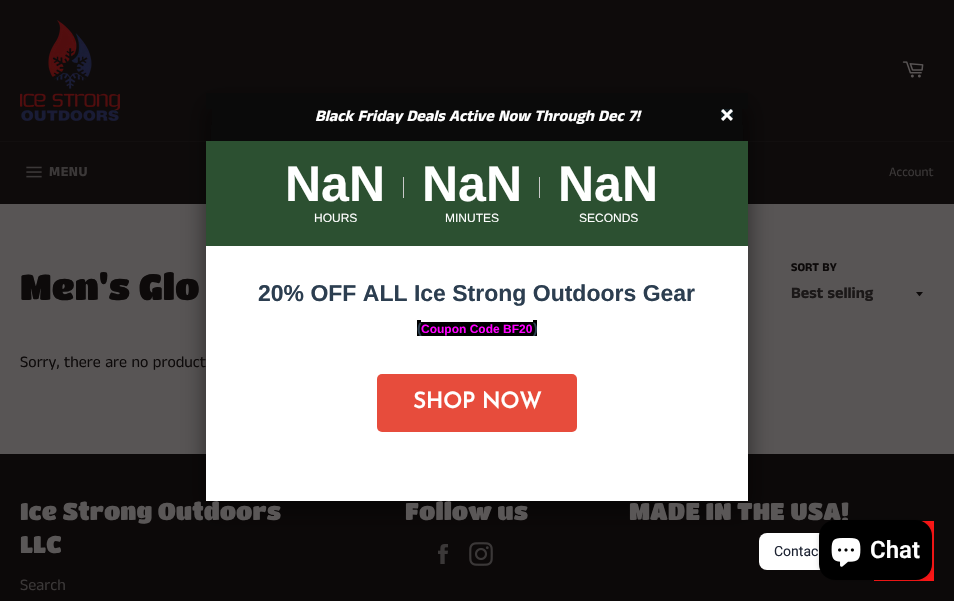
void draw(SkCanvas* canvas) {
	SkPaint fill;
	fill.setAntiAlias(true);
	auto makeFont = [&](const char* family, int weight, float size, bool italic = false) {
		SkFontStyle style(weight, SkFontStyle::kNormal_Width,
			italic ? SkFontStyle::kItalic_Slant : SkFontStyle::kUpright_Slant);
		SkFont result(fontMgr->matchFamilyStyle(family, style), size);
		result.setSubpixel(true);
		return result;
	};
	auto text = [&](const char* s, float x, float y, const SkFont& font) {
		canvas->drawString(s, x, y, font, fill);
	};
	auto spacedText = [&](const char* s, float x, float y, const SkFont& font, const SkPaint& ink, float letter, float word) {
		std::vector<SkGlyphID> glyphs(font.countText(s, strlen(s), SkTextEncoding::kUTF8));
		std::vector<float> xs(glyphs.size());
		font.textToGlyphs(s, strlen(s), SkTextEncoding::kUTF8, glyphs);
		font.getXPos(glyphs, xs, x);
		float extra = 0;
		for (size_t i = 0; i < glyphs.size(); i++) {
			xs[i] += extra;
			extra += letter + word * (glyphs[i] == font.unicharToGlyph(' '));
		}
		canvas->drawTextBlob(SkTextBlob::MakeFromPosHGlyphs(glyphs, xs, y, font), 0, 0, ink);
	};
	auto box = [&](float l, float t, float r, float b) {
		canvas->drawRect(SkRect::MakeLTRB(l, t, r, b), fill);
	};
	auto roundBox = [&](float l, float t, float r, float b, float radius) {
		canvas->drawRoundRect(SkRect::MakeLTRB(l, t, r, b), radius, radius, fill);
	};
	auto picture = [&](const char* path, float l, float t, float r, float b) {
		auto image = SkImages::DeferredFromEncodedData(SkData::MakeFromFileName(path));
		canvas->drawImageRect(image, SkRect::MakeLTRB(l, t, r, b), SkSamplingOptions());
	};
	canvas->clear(0xFF585555);
	fill.setColor(0xFF0E0B0B);
	box(0, 0, 954, 141);
	box(0, 142, 954, 204);
	fill.setColor(0xFF120F0F);
	box(0, 141, 954, 142);
	fill.setColor(0xFF0C0909);
	box(0, 454, 954, 601);
	picture("image4.png", 438, 544, 448, 564);
	picture("image5.png", 469, 542, 493, 566);
	fill.setColor(0x80000000);
	fill.setMaskFilter(SkMaskFilter::MakeBlur(kNormal_SkBlurStyle, 12.5f));
	canvas->drawRoundRect(SkRect::MakeLTRB(206, 103, 748, 511), 4, 4, fill);
	fill.setMaskFilter(nullptr);
	fill.setColor(0xFFFFFFFF);
	box(206, 246, 748, 501);
	fill.setColor(0xFF0A0A0A);
	box(206, 93, 748, 109);
	box(212, 109, 742, 125);
	box(211, 125, 743, 141);
	fill.setColor(0xFF2C5031);
	box(206, 141, 748, 246);
	fill.setColor(0xFFC9C9C9);
	box(403, 177, 404, 198);
	box(539, 177, 540, 198);
	fill.setColor(0xFF000000);
	box(417, 320, 421, 336);
	box(421, 322, 533, 336);
	box(533, 320, 537, 336);
	fill.setColor(0xFFE74C3C);
	roundBox(377, 374, 577, 432, 5);
	picture("image0.png", 721, 109, 733, 121);
	picture("image1.png", 20, 20, 120, 121);
	picture("image2.png", 902, 61, 924, 78);
	picture("image3.png", 26, 166, 42, 178);
	fill.setColor(0xFF0D0A0A);
	canvas->drawPath(SkPathBuilder().moveTo(916, 292).cubicTo(920.5f, 297.5f, 918.5f, 297.5f, 923, 292).close().detach(), fill);
	fill.setColor(0xFFFFFFFF);
	roundBox(759, 533, 858, 570, 8);
	fill.setColor(0xFFFC1616);
	box(874, 521, 934, 581);
	fill.setColor(0x26000000);
	fill.setMaskFilter(SkMaskFilter::MakeBlur(kNormal_SkBlurStyle, 2.5f));
	canvas->drawRoundRect(SkRect::MakeLTRB(819, 520, 932, 580), 16, 16, fill);
	fill.setMaskFilter(nullptr);
	auto font1 = makeFont("Anek Tamil", 700, 16, true);
	fill.setColor(0xFFFFFFFF);
	text("Black Friday Deals Active Now Through Dec 7!", 315, 121, font1);
	auto font2 = makeFont("Liberation Sans", 700, 50);
	text("NaN", 285, 201, font2);
	auto font3 = makeFont("Liberation Sans", 400, 12);
	text("HOURS", 314, 222, font3);
	text("NaN", 422, 201, font2);
	text("MINUTES", 445, 222, font3);
	text("NaN", 558, 201, font2);
	text("SECONDS", 579, 222, font3);
	auto font4 = makeFont("Liberation Sans", 700, 23);
	fill.setColor(0xFF2C3E50);
	text("20% OFF ALL Ice Strong Outdoors Gear", 258, 301, font4);
	auto font5 = makeFont("Liberation Sans", 700, 14);
	text("(", 417, 333, font5);
	auto font6 = makeFont("Liberation Sans", 700, 12);
	fill.setColor(0xFFFF00FF);
	text("Coupon Code BF20", 421, 333, font6);
	fill.setColor(0xFF2C3E50);
	text(")", 533, 333, font5);
	auto font7 = makeFont("Josefin Sans", 700, 22);
	fill.setColor(0xFFFFFFFF);
	text("SHOP NOW", 413, 408, font7);
	auto font8 = makeFont("Anek Tamil", 700, 14);
	fill.setColor(0xFF3B3838);
	spacedText("MENU", 49, 176, font8, fill, 0.5f, 0);
	auto font9 = makeFont("Anek Tamil", 400, 13);
	text("Account", 889, 176, font9);
	auto font10 = makeFont("Titan One", 400, 36);
	fill.setColor(0xFF0D0A0A);
	text("Men's Glo", 20, 300, font10);
	auto font11 = makeFont("Anek Tamil", 700, 12);
	text("SORT BY", 791, 271, font11);
	auto font12 = makeFont("Anek Tamil", 700, 16);
	fill.setColor(0xFF1B1818);
	text("Best selling", 791, 298, font12);
	auto font13 = makeFont("Anek Tamil", 400, 16);
	fill.setColor(0xFF0D0A0A);
	text("Sorry, there are no product", 20, 367, font13);
	auto font14 = makeFont("Titan One", 400, 24);
	fill.setColor(0xFF5A5757);
	text("Ice Strong Outdoors", 20, 520, font14);
	text("LLC", 20, 553, font14);
	fill.setColor(0xFF3B3838);
	text("Search", 20, 590, font13);
	fill.setColor(0xFF5A5757);
	text("Follow us", 405, 520, font14);
	text("MADE IN THE USA!", 629, 520, font14);
	fill.setColor(0xFF000000);
	roundBox(819, 520, 932, 580, 16);
	picture("image6.png", 831, 538, 861, 567);
	auto font15 = makeFont("Roboto", 600, 24);
	fill.setColor(0xFFFFFFFF);
	text("Chat", 870, 558, font15);
	auto font16 = makeFont("Roboto", 400, 14);
	fill.setColor(0xFF1E2433);
	text("Contac", 774, 556, font16);
}
